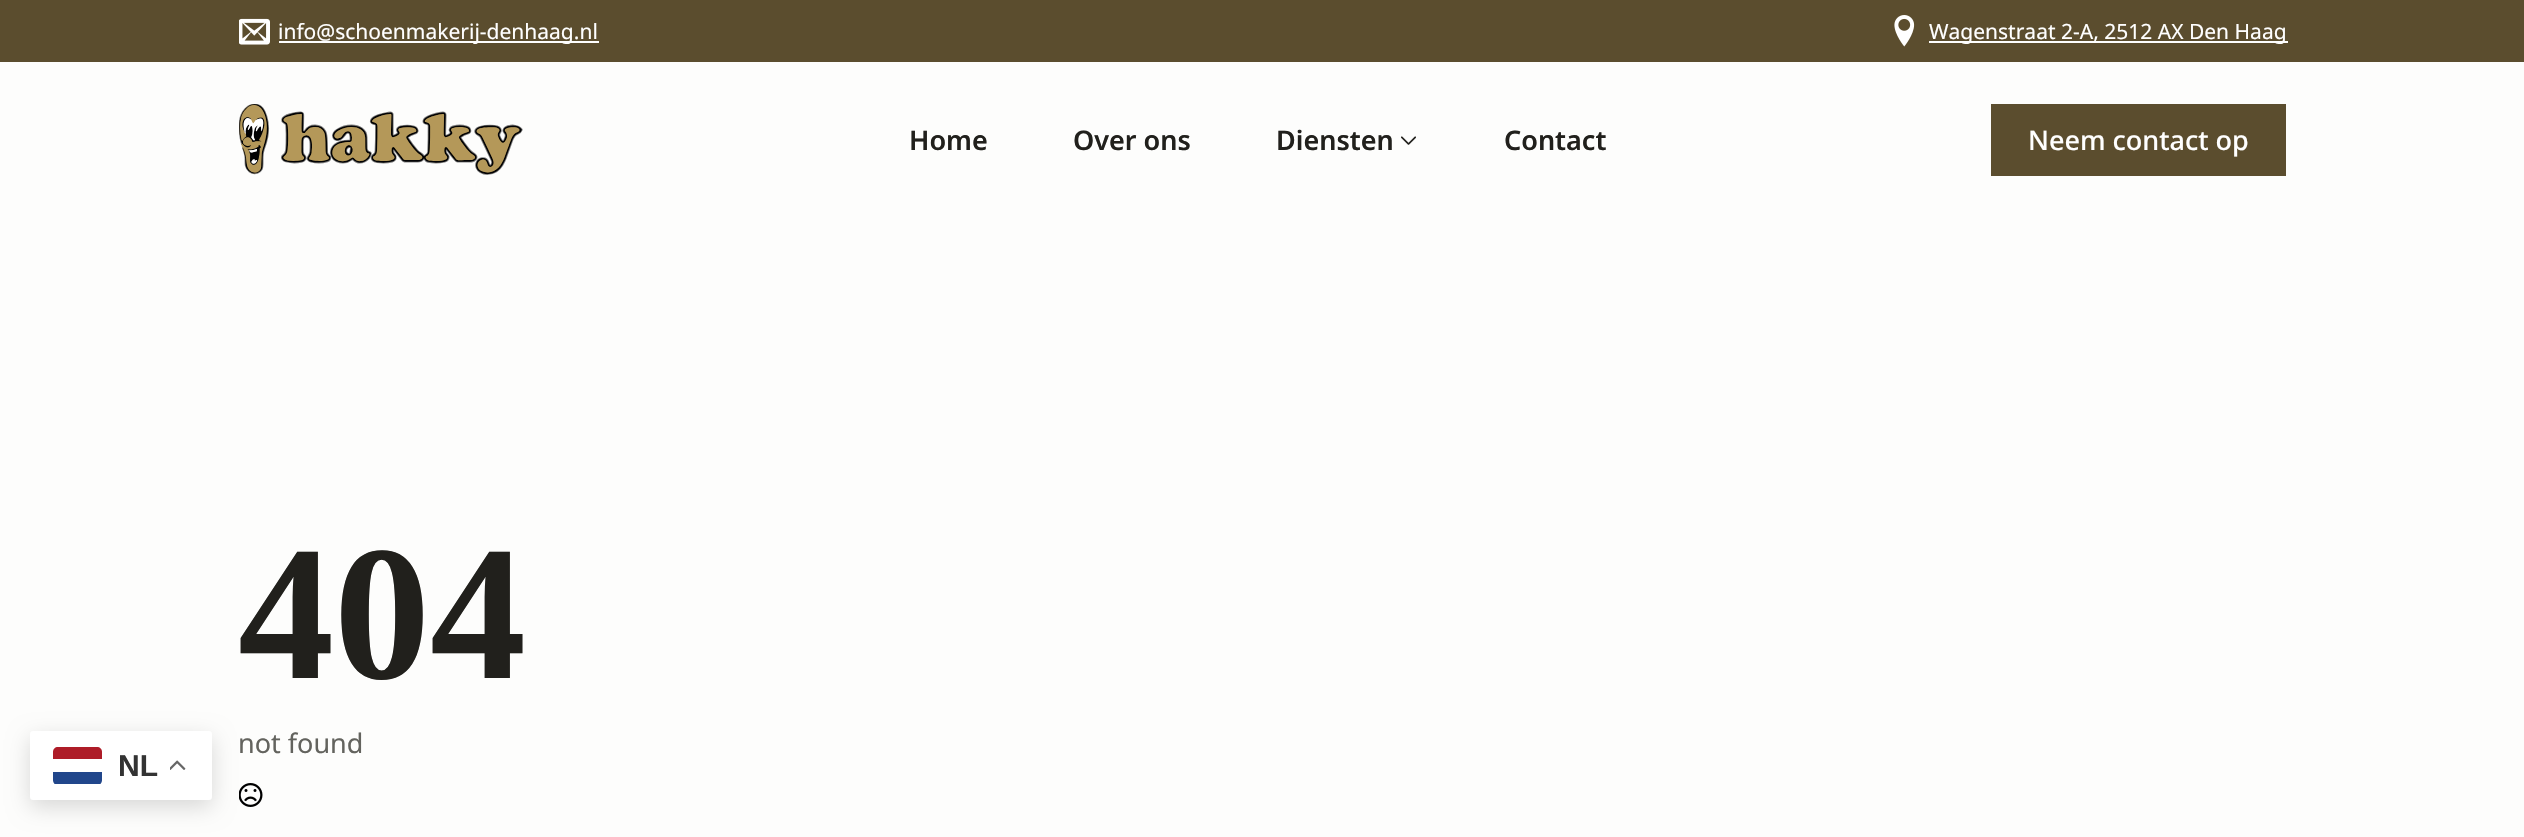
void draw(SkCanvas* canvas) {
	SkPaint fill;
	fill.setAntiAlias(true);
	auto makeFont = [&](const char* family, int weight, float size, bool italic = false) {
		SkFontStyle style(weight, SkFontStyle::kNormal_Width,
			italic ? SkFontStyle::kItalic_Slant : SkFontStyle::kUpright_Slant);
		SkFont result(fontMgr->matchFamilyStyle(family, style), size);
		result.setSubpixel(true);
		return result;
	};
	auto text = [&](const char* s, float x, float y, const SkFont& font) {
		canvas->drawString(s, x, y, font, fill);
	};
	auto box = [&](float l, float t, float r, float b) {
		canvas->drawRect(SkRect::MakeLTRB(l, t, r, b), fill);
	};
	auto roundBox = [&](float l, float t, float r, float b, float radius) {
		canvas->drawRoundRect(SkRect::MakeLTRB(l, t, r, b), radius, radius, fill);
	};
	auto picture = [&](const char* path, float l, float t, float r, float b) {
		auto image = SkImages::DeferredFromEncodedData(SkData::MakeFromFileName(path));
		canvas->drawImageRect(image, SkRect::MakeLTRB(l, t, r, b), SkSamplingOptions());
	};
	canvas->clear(0xFFFDFDFC);
	fill.setColor(0xFF5B4D2E);
	box(0, 0, 2524, 62);
	picture("image0.png", 239, 18, 270, 45);
	fill.setColor(0xFFFFFFFF);
	box(279, 41, 599, 43);
	picture("image1.png", 1894, 15, 1915, 47);
	box(1929, 41, 2288, 43);
	picture("image2.png", 239, 104, 523, 175);
	picture("image3.png", 1401, 136, 1416, 145);
	fill.setColor(0xFF5B4D2E);
	box(1991, 104, 2286, 176);
	picture("image4.png", 239, 783, 263, 807);
	fill.setColor(0x26000000);
	fill.setMaskFilter(SkMaskFilter::MakeBlur(kNormal_SkBlurStyle, 11));
	canvas->drawRoundRect(SkRect::MakeLTRB(30, 738, 212, 807), 3, 3, fill);
	fill.setMaskFilter(nullptr);
	fill.setColor(0xFFFFFFFF);
	roundBox(30, 731, 212, 800, 3);
	canvas->save();
	canvas->clipPath(SkPathBuilder().moveTo(58, 747).lineTo(97, 747).cubicTo(100, 747, 102, 749, 102, 752).lineTo(102, 780).cubicTo(102, 783, 100, 785, 97, 785).lineTo(58, 785).cubicTo(55, 785, 53, 783, 53, 780).lineTo(53, 752).cubicTo(53, 749, 55, 747, 58, 747).close().detach(), true);
	fill.setColor(0xFF21468B);
	box(53, 772, 102, 784);
	canvas->restore();
	fill.setColor(0xFFAE1C28);
	canvas->drawPath(SkPathBuilder().moveTo(58, 747).lineTo(97, 747).cubicTo(100, 747, 102, 749, 102, 752).lineTo(102, 759).lineTo(53, 759).lineTo(53, 752).cubicTo(53, 749, 55, 747, 58, 747).close().detach(), fill);
	picture("image5.png", 170, 760, 186, 770);
	auto font1 = makeFont("Noto Sans", 400, 21);
	fill.setColor(0xFFFFFFFF);
	text("info@schoenmakerij-denhaag.nl", 278, 39, font1);
	text("Wagenstraat 2-A, 2512 AX Den Haag", 1929, 39, font1);
	auto font2 = makeFont("Noto Sans", 600, 27);
	fill.setColor(0xFF21201C);
	text("Home", 909, 150, font2);
	text("Over ons", 1073, 150, font2);
	text("Diensten", 1276, 150, font2);
	text("Contact", 1504, 150, font2);
	auto font3 = makeFont("Noto Sans", 500, 27);
	fill.setColor(0xFFFFFFFF);
	text("Neem contact op", 2028, 150, font3);
	auto font4 = makeFont("Liberation Serif", 700, 192);
	fill.setColor(0xFF21201C);
	text("404", 238, 678, font4);
	auto font5 = makeFont("Noto Sans", 400, 27);
	fill.setColor(0xFF63635E);
	text("not found", 238, 753, font5);
	auto font6 = makeFont("Liberation Sans", 700, 30);
	fill.setColor(0xFF333333);
	text("NL", 118, 776, font6);
}
